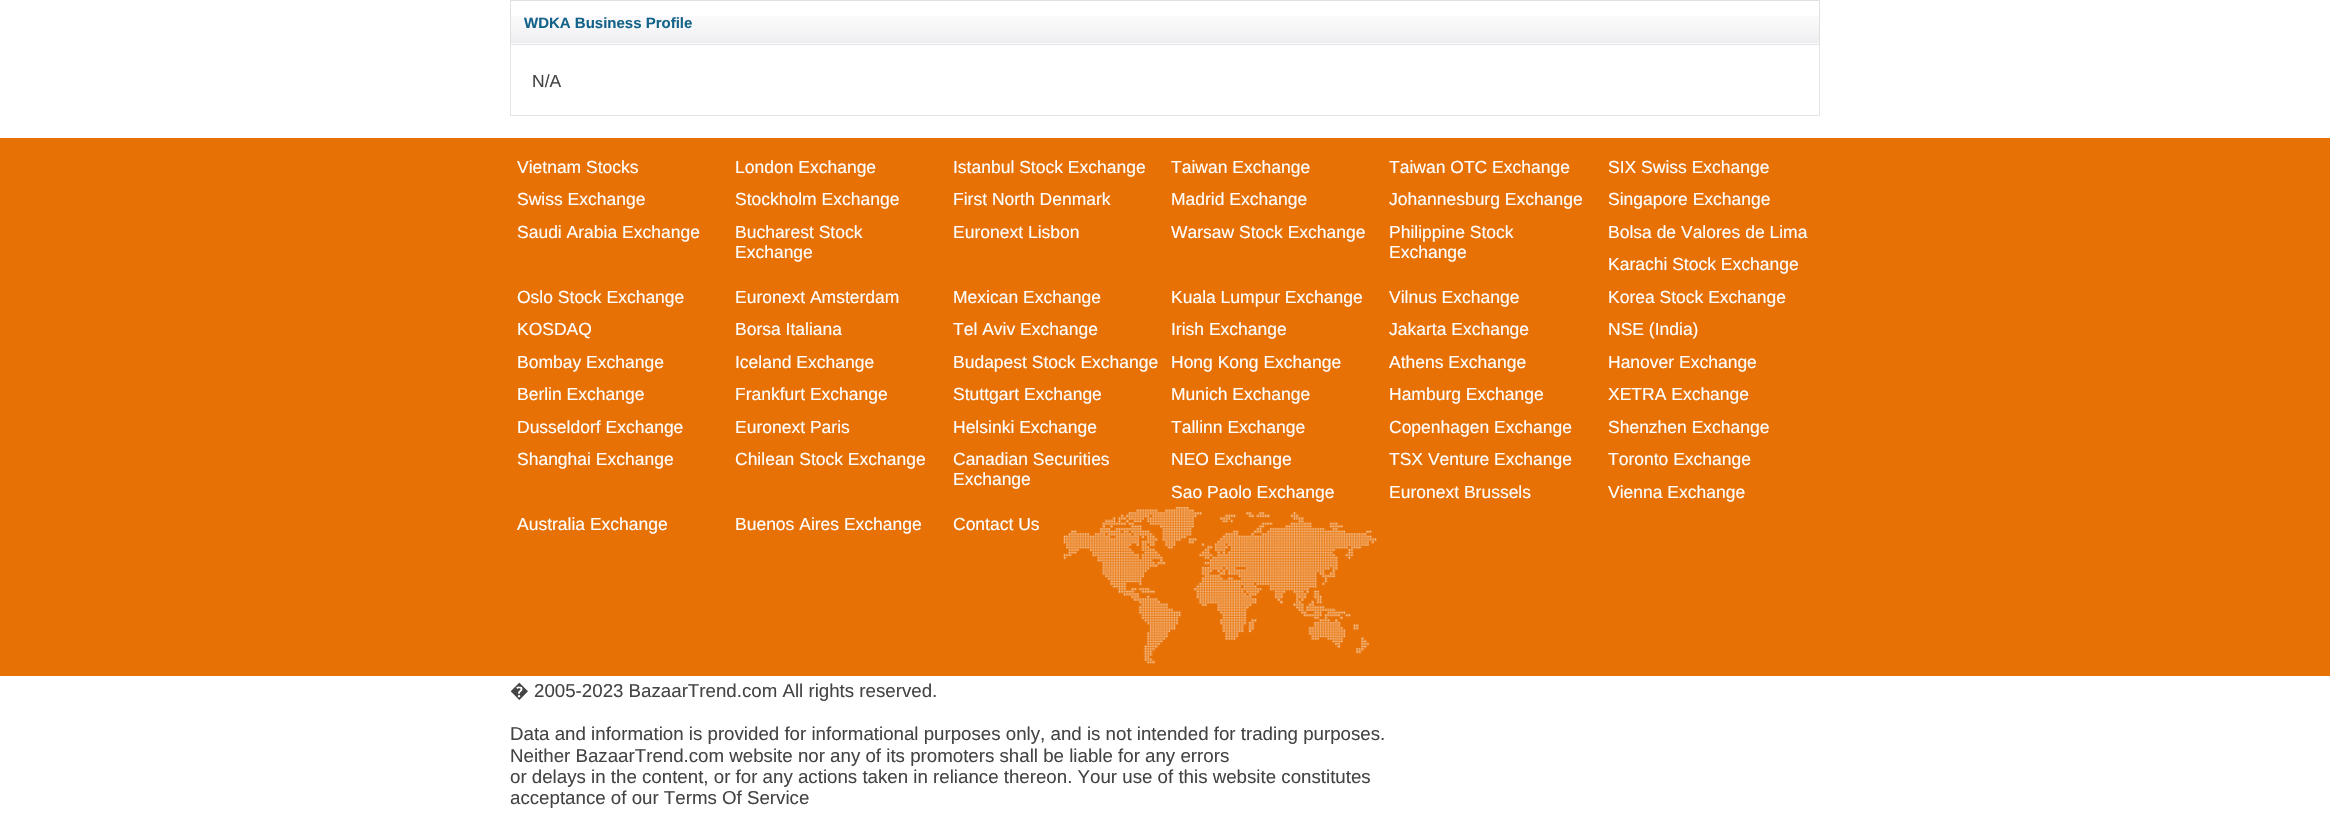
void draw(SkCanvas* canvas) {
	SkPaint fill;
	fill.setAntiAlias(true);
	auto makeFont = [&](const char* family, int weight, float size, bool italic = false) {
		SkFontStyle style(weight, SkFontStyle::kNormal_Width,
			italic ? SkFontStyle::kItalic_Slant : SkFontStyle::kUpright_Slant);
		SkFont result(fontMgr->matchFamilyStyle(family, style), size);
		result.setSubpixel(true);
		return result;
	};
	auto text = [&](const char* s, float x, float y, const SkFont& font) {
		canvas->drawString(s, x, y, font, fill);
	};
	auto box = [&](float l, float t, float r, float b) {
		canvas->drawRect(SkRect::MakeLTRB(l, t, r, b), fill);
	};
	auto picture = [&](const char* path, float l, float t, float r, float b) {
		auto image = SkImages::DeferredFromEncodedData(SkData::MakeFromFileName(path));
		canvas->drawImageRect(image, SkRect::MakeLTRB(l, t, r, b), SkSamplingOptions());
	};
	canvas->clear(0xFFFFFFFF);
	picture("image0.png", 511, 16, 1819, 44);
	fill.setColor(0xFFE0E0E0);
	box(510, 0, 1820, 1);
	box(1819, 0, 1820, 44);
	box(510, 0, 511, 44);
	fill.setStyle(SkPaint::kStroke_Style);
	fill.setStrokeWidth(1);
	fill.setColor(0xFFE5E4E9);
	canvas->drawRect(SkRect::MakeLTRB(510.5f, 44.5f, 1819.5f, 115.5f), fill);
	fill.setStyle(SkPaint::kFill_Style);
	fill.setColor(0xFFE77105);
	box(0, 138, 2330, 676);
	picture("image1.png", 1063, 507, 1377, 664);
	auto font1 = makeFont("Liberation Sans", 700, 15);
	fill.setColor(0xFF136289);
	text("WDKA Business Profile", 524, 28, font1);
	auto font2 = makeFont("Liberation Sans", 400, 17.5f);
	fill.setColor(0xFF444444);
	text("N/A", 532, 87, font2);
	fill.setColor(0xFFFFFFFF);
	text("Vietnam Stocks", 517, 173, font2);
	text("London Exchange", 735, 173, font2);
	text("Istanbul Stock Exchange", 953, 173, font2);
	text("Taiwan Exchange", 1171, 173, font2);
	text("Taiwan OTC Exchange", 1389, 173, font2);
	text("SIX Swiss Exchange", 1608, 173, font2);
	text("Swiss Exchange", 517, 205, font2);
	text("Stockholm Exchange", 735, 205, font2);
	text("First North Denmark", 953, 205, font2);
	text("Madrid Exchange", 1171, 205, font2);
	text("Johannesburg Exchange", 1389, 205, font2);
	text("Singapore Exchange", 1608, 205, font2);
	text("Saudi Arabia Exchange", 517, 238, font2);
	text("Bucharest Stock", 735, 238, font2);
	text("Exchange", 735, 258, font2);
	text("Euronext Lisbon", 953, 238, font2);
	text("Warsaw Stock Exchange", 1171, 238, font2);
	text("Philippine Stock", 1389, 238, font2);
	text("Exchange", 1389, 258, font2);
	text("Bolsa de Valores de Lima", 1608, 238, font2);
	text("Karachi Stock Exchange", 1608, 270, font2);
	text("Oslo Stock Exchange", 517, 303, font2);
	text("Euronext Amsterdam", 735, 303, font2);
	text("Mexican Exchange", 953, 303, font2);
	text("Kuala Lumpur Exchange", 1171, 303, font2);
	text("Vilnus Exchange", 1389, 303, font2);
	text("Korea Stock Exchange", 1608, 303, font2);
	text("KOSDAQ", 517, 335, font2);
	text("Borsa Italiana", 735, 335, font2);
	text("Tel Aviv Exchange", 953, 335, font2);
	text("Irish Exchange", 1171, 335, font2);
	text("Jakarta Exchange", 1389, 335, font2);
	text("NSE (India)", 1608, 335, font2);
	text("Bombay Exchange", 517, 368, font2);
	text("Iceland Exchange", 735, 368, font2);
	text("Budapest Stock Exchange", 953, 368, font2);
	text("Hong Kong Exchange", 1171, 368, font2);
	text("Athens Exchange", 1389, 368, font2);
	text("Hanover Exchange", 1608, 368, font2);
	text("Berlin Exchange", 517, 400, font2);
	text("Frankfurt Exchange", 735, 400, font2);
	text("Stuttgart Exchange", 953, 400, font2);
	text("Munich Exchange", 1171, 400, font2);
	text("Hamburg Exchange", 1389, 400, font2);
	text("XETRA Exchange", 1608, 400, font2);
	text("Dusseldorf Exchange", 517, 433, font2);
	text("Euronext Paris", 735, 433, font2);
	text("Helsinki Exchange", 953, 433, font2);
	text("Tallinn Exchange", 1171, 433, font2);
	text("Copenhagen Exchange", 1389, 433, font2);
	text("Shenzhen Exchange", 1608, 433, font2);
	text("Shanghai Exchange", 517, 465, font2);
	text("Chilean Stock Exchange", 735, 465, font2);
	text("Canadian Securities", 953, 465, font2);
	text("Exchange", 953, 485, font2);
	text("NEO Exchange", 1171, 465, font2);
	text("TSX Venture Exchange", 1389, 465, font2);
	text("Toronto Exchange", 1608, 465, font2);
	text("Sao Paolo Exchange", 1171, 498, font2);
	text("Euronext Brussels", 1389, 498, font2);
	text("Vienna Exchange", 1608, 498, font2);
	text("Australia Exchange", 517, 530, font2);
	text("Buenos Aires Exchange", 735, 530, font2);
	text("Contact Us", 953, 530, font2);
	auto font3 = makeFont("Noto Sans", 400, 18.7f);
	fill.setColor(0xFF444444);
	text("�", 510, 697, font3);
	auto font4 = makeFont("Liberation Sans", 400, 18.7f);
	text("2005-2023 BazaarTrend.com All rights reserved.", 534, 697, font4);
	text("Data and information is provided for informational purposes only, and is not intended for trading purposes.", 510, 740, font4);
	text("Neither BazaarTrend.com website nor any of its promoters shall be liable for any errors", 510, 762, font4);
	text("or delays in the content, or for any actions taken in reliance thereon. Your use of this website constitutes", 510, 783, font4);
	text("acceptance of our Terms Of Service", 510, 804, font4);
}
